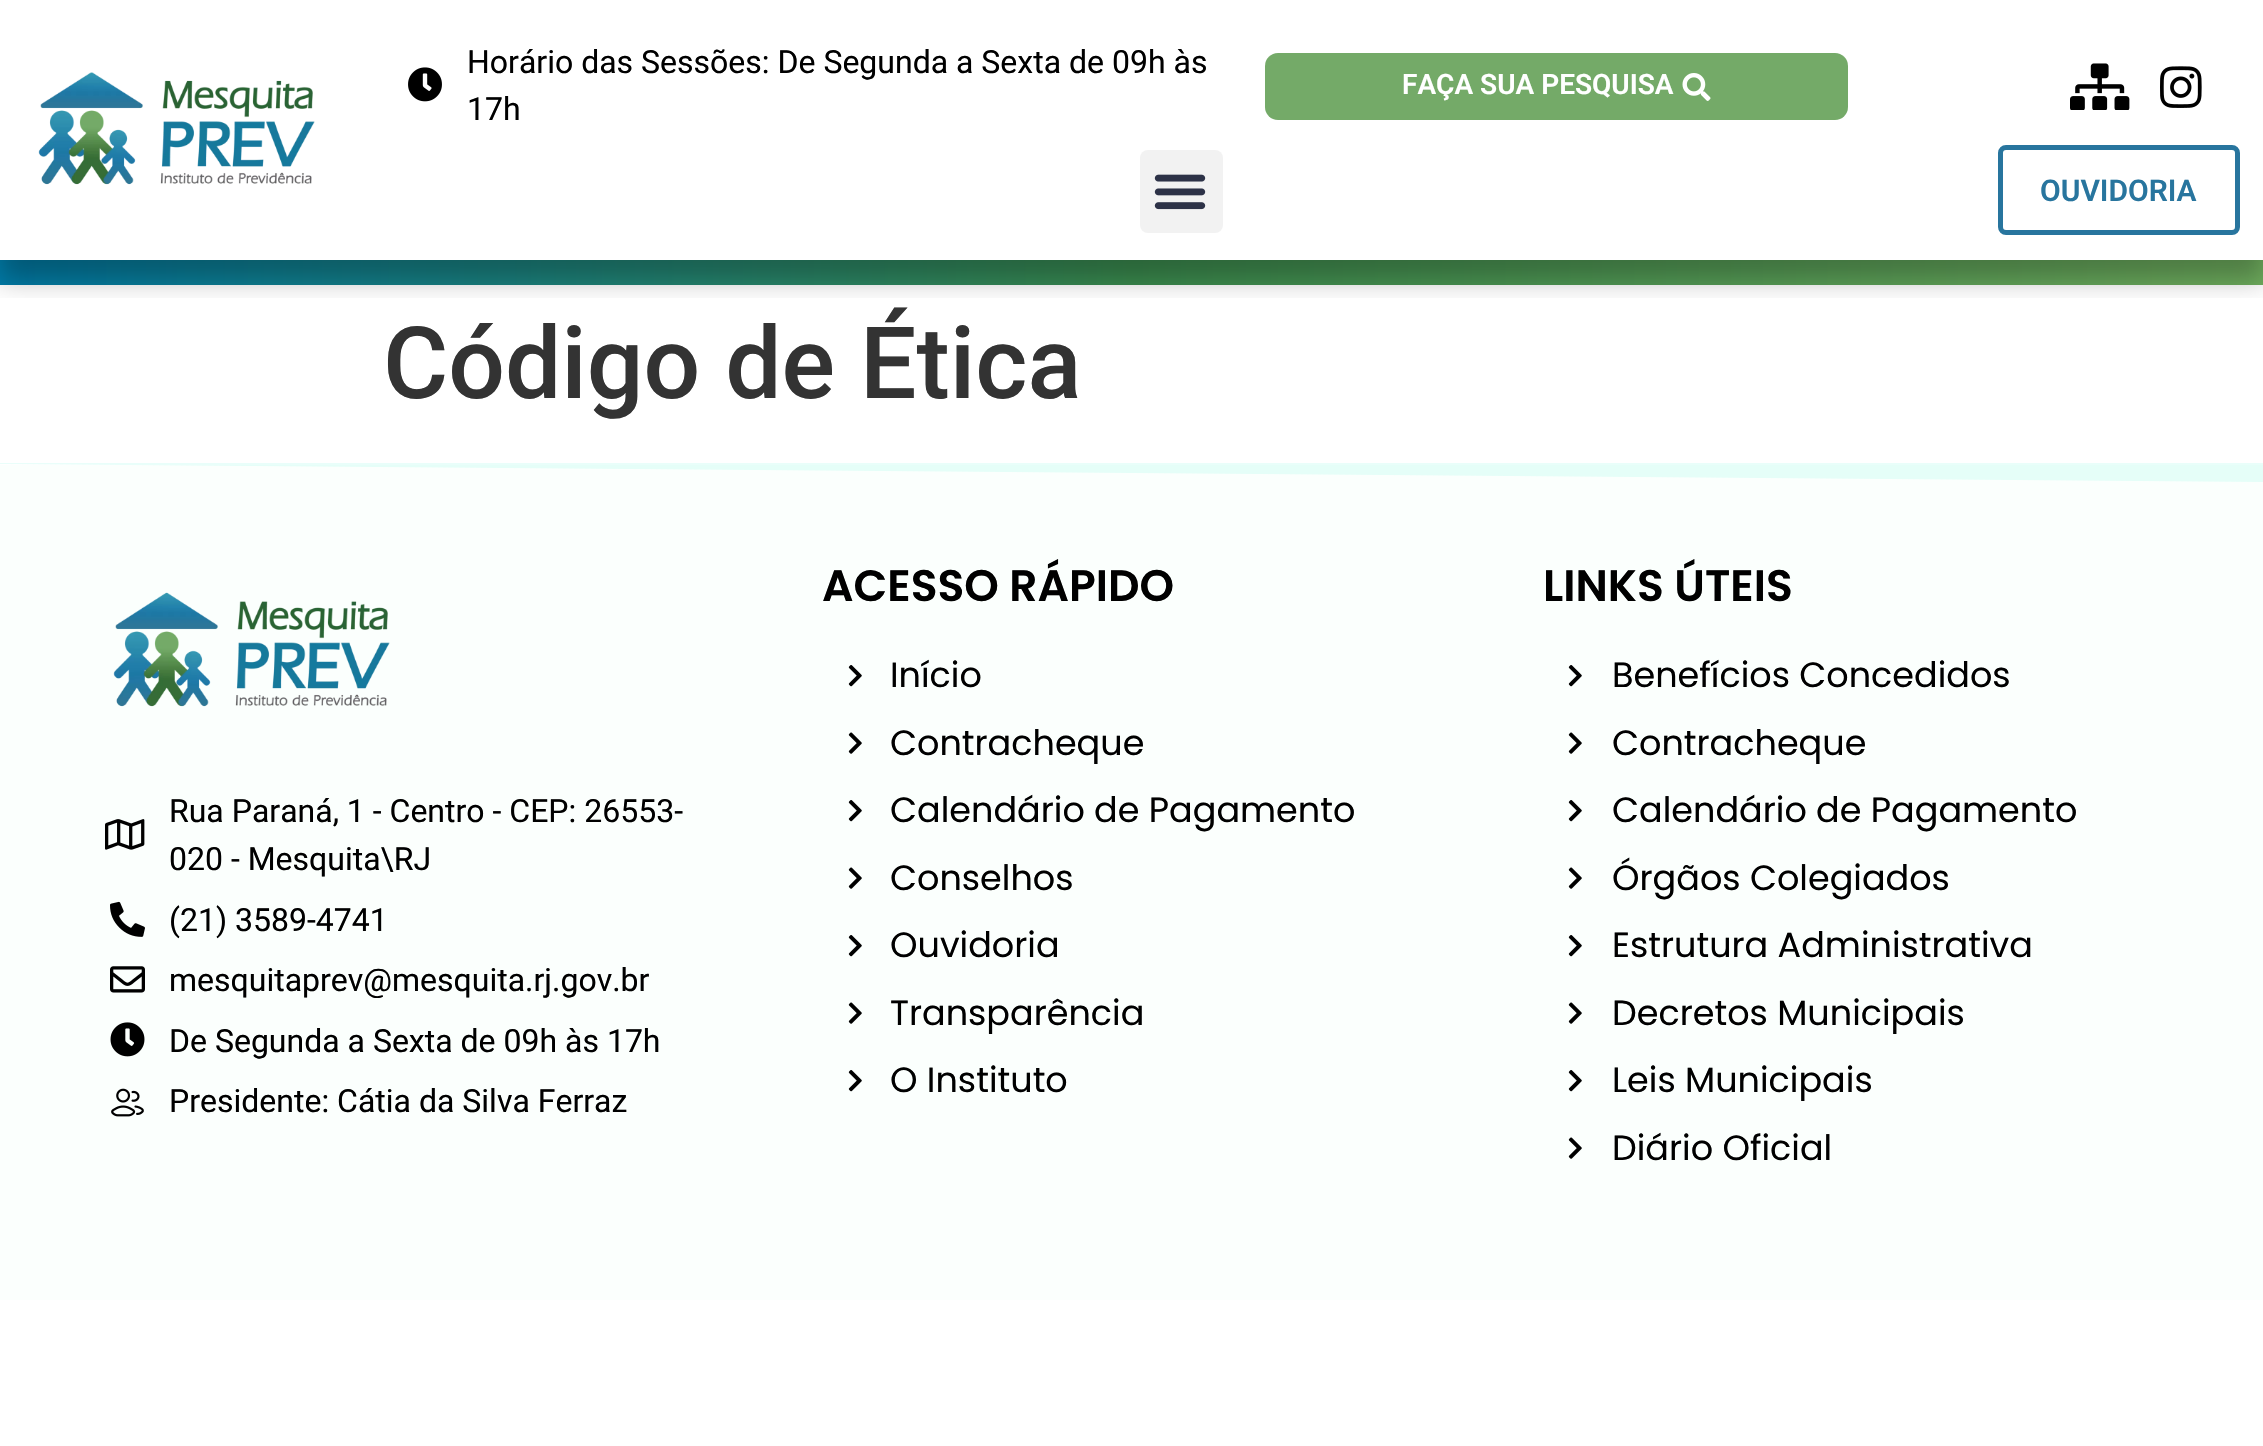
void draw(SkCanvas* canvas) {
	SkPaint fill;
	fill.setAntiAlias(true);
	auto makeFont = [&](const char* family, int weight, float size, bool italic = false) {
		SkFontStyle style(weight, SkFontStyle::kNormal_Width,
			italic ? SkFontStyle::kItalic_Slant : SkFontStyle::kUpright_Slant);
		SkFont result(fontMgr->matchFamilyStyle(family, style), size);
		result.setSubpixel(true);
		return result;
	};
	auto text = [&](const char* s, float x, float y, const SkFont& font) {
		canvas->drawString(s, x, y, font, fill);
	};
	auto box = [&](float l, float t, float r, float b) {
		canvas->drawRect(SkRect::MakeLTRB(l, t, r, b), fill);
	};
	auto roundBox = [&](float l, float t, float r, float b, float radius) {
		canvas->drawRoundRect(SkRect::MakeLTRB(l, t, r, b), radius, radius, fill);
	};
	auto picture = [&](const char* path, float l, float t, float r, float b) {
		auto image = SkImages::DeferredFromEncodedData(SkData::MakeFromFileName(path));
		canvas->drawImageRect(image, SkRect::MakeLTRB(l, t, r, b), SkSamplingOptions());
	};
	canvas->clear(0xFFFFFFFF);
	{
		const SkColor colors[] = {0xFF007BA7, 0xFF3A8B4E, 0xFF6FAE5E};
		const float stops[] = {0, 0.5f, 1};
		const SkPoint ends[] = {{0, 273}, {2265, 272}};
		fill.setShader(SkGradientShader::MakeLinear(ends, colors, stops, 3, SkTileMode::kClamp));
		fill.setAlpha(255);
	}
	box(0, 260, 2263, 285);
	canvas->save();
	canvas->clipRect(SkRect::MakeLTRB(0, 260, 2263, 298));
	fill.setShader(nullptr);
	fill.setColor(0x47000000);
	fill.setMaskFilter(SkMaskFilter::MakeBlur(kNormal_SkBlurStyle, 12.5f));
	canvas->drawRect(SkRect::MakeLTRB(0, 20, 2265, 280), fill);
	fill.setMaskFilter(nullptr);
	canvas->restore();
	picture("image0.png", 38, 72, 315, 185);
	picture("image1.png", 408, 67, 442, 102);
	fill.setColor(0xFF74AA68);
	roundBox(1265, 53, 1848, 120, 13);
	picture("image2.png", 1682, 73, 1711, 101);
	picture("image3.png", 2070, 63, 2130, 110);
	picture("image4.png", 2160, 66, 2202, 108);
	fill.setColor(0xFFF2F2F2);
	roundBox(1140, 150, 1223, 233, 8);
	picture("image5.png", 1154, 174, 1206, 210);
	fill.setStyle(SkPaint::kStroke_Style);
	fill.setStrokeWidth(5);
	fill.setColor(0xFF28759E);
	canvas->drawRoundRect(SkRect::MakeLTRB(2000.5f, 147.5f, 2237.5f, 232.5f), 5.5f, 5.5f, fill);
	fill.setStyle(SkPaint::kFill_Style);
	fill.setColor(0xFFFBFFFD);
	box(0, 465, 2263, 1300);
	canvas->save();
	canvas->clipRect(SkRect::MakeLTRB(0, 463, 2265, 483));
	fill.setColor(0x1707F3C5);
	canvas->drawPath(SkPathBuilder().moveTo(-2, 464).lineTo(-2, 462).lineTo(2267, 462).lineTo(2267, 482).close().detach(), fill);
	canvas->restore();
	picture("image6.png", 113, 592, 390, 707);
	picture("image7.png", 105, 819, 145, 850);
	picture("image8.png", 110, 901, 145, 937);
	picture("image9.png", 110, 966, 145, 993);
	picture("image10.png", 110, 1022, 145, 1057);
	picture("image11.png", 111, 1088, 144, 1117);
	picture("image12.png", 848, 665, 862, 687);
	picture("image13.png", 848, 732, 862, 754);
	picture("image12.png", 848, 800, 862, 822);
	picture("image13.png", 848, 867, 862, 889);
	picture("image12.png", 848, 935, 862, 957);
	picture("image13.png", 848, 1002, 862, 1024);
	picture("image12.png", 848, 1070, 862, 1092);
	picture("image12.png", 1568, 665, 1582, 687);
	picture("image13.png", 1568, 732, 1582, 754);
	picture("image12.png", 1568, 800, 1582, 822);
	picture("image13.png", 1568, 867, 1582, 889);
	picture("image12.png", 1568, 935, 1582, 957);
	picture("image13.png", 1568, 1002, 1582, 1024);
	picture("image12.png", 1568, 1070, 1582, 1092);
	picture("image13.png", 1568, 1137, 1582, 1159);
	auto font1 = makeFont("Roboto", 400, 32);
	fill.setColor(0xFF000000);
	text("Horário das Sessões: De Segunda a Sexta de 09h às", 467, 73, font1);
	text("17h", 467, 120, font1);
	auto font2 = makeFont("Roboto", 600, 28);
	fill.setColor(0xFFFFFFFF);
	text("FAÇA SUA PESQUISA", 1402, 94, font2);
	auto font3 = makeFont("Roboto", 600, 30);
	fill.setColor(0xFF28759E);
	text("OUVIDORIA", 2040, 201, font3);
	auto font4 = makeFont("Roboto", 500, 100);
	fill.setColor(0xFF333333);
	text("Código de Ética", 383, 398, font4);
	fill.setColor(0xFF000000);
	text("Rua Paraná, 1 - Centro - CEP: 26553-", 169, 822, font1);
	text("020 - Mesquita\\RJ", 169, 870, font1);
	text("(21) 3589-4741", 169, 931, font1);
	text("mesquitaprev@mesquita.rj.gov.br", 169, 991, font1);
	text("De Segunda a Sexta de 09h às 17h", 169, 1052, font1);
	text("Presidente: Cátia da Silva Ferraz", 169, 1112, font1);
	auto font5 = makeFont("Poppins", 600, 44);
	text("ACESSO RÁPIDO", 822, 601, font5);
	auto font6 = makeFont("Poppins", 400, 35);
	text("Início", 890, 687, font6);
	text("Contracheque", 890, 755, font6);
	text("Calendário de Pagamento", 890, 822, font6);
	text("Conselhos", 890, 890, font6);
	text("Ouvidoria", 890, 957, font6);
	text("Transparência", 890, 1025, font6);
	text("O Instituto", 890, 1092, font6);
	text("LINKS ÚTEIS", 1543, 601, font5);
	text("Benefícios Concedidos", 1612, 687, font6);
	text("Contracheque", 1612, 755, font6);
	text("Calendário de Pagamento", 1612, 822, font6);
	text("Órgãos Colegiados", 1612, 890, font6);
	text("Estrutura Administrativa", 1612, 957, font6);
	text("Decretos Municipais", 1612, 1025, font6);
	text("Leis Municipais", 1612, 1092, font6);
	text("Diário Oficial", 1612, 1160, font6);
}
